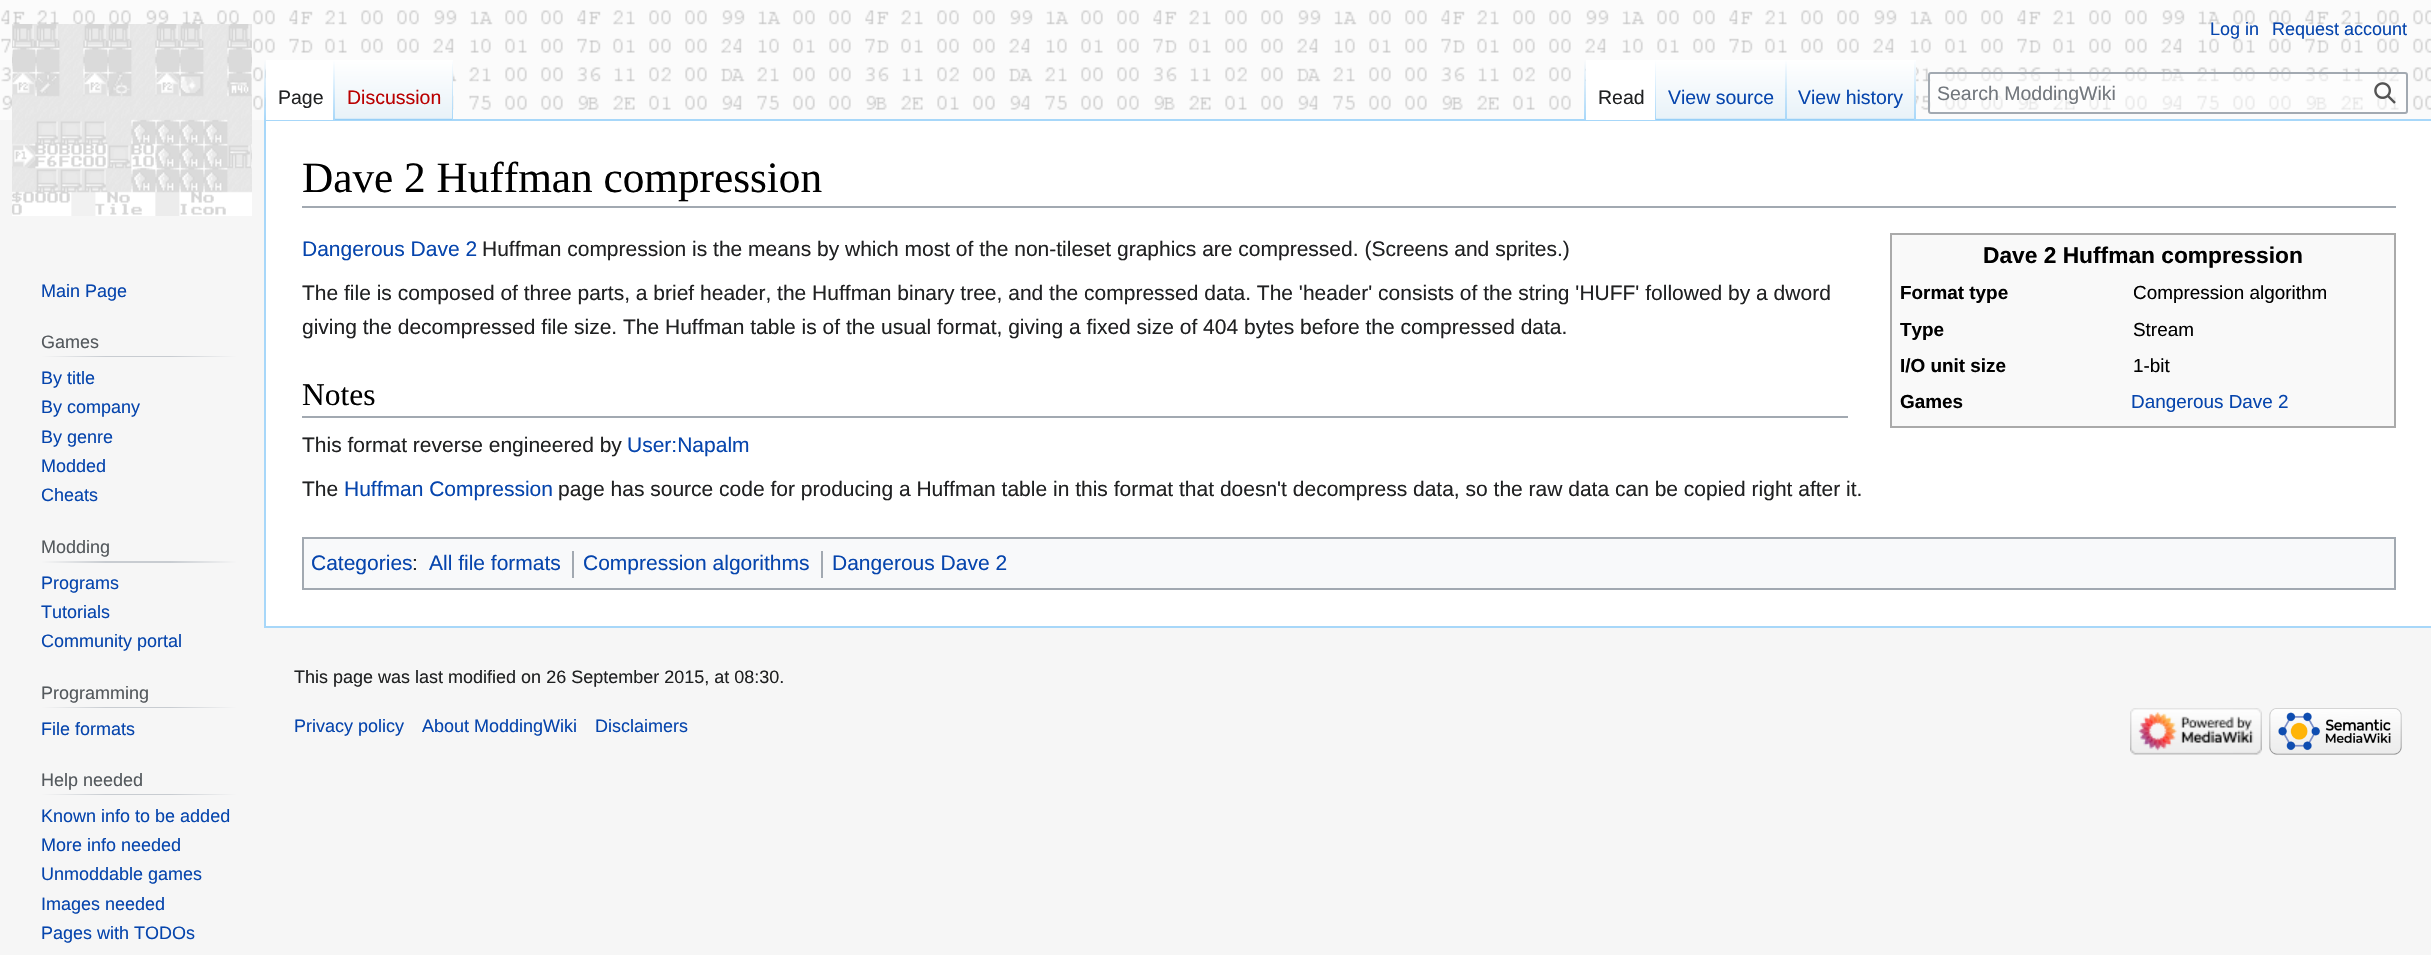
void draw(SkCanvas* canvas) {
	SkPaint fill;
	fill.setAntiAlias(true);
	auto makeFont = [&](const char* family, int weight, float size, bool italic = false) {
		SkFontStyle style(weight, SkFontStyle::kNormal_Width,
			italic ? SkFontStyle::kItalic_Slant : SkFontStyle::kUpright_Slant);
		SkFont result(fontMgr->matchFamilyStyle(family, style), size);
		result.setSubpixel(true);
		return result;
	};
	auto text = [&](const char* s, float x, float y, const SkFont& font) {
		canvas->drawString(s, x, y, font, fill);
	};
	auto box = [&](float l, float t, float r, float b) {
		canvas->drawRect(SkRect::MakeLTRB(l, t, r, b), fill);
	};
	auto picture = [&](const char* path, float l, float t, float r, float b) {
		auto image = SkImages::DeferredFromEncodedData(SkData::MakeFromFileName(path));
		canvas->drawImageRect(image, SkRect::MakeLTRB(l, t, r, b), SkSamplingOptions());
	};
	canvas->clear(0xFFF6F6F6);
	fill.setColor(0xFFFBFBFB);
	box(0, 0, 2431, 120);
	picture("image0.png", 1, 10, 2431, 110);
	fill.setColor(0xFFA7D7F9);
	box(264, 119, 2431, 121);
	box(264, 626, 2431, 628);
	box(264, 119, 266, 627);
	{
		const SkColor colors[] = {0x00A7D7F9, 0xFFA7D7F9};
		const float stops[] = {0, 1};
		const SkPoint ends[] = {{265, 60}, {265, 120}};
		fill.setShader(SkGradientShader::MakeLinear(ends, colors, stops, 2, SkTileMode::kClamp));
		fill.setAlpha(255);
	}
	box(264, 60, 266, 120);
	fill.setShader(nullptr);
	fill.setColor(0xFFFFFFFF);
	box(266, 60, 333, 120);
	{
		const SkColor colors[] = {0xFFFFFFFF, 0xFFA7D7F9};
		const float stops[] = {0, 1};
		const SkPoint ends[] = {{334, 60}, {334, 120}};
		fill.setShader(SkGradientShader::MakeLinear(ends, colors, stops, 2, SkTileMode::kClamp));
		fill.setAlpha(255);
	}
	box(333, 60, 335, 120);
	{
		const SkColor colors[] = {0xFF77C1F6, 0xFFE8F2F8, 0xFFFFFFFF};
		const float stops[] = {0, 0.03f, 1};
		const SkPoint ends[] = {{394, 120}, {394, 60}};
		fill.setShader(SkGradientShader::MakeLinear(ends, colors, stops, 3, SkTileMode::kClamp));
		fill.setAlpha(255);
	}
	box(335, 60, 453, 120);
	{
		const SkColor colors[] = {0x00A7D7F9, 0xFFA7D7F9};
		const float stops[] = {0, 1};
		const SkPoint ends[] = {{452, 60}, {452, 120}};
		fill.setShader(SkGradientShader::MakeLinear(ends, colors, stops, 2, SkTileMode::kClamp));
		fill.setAlpha(255);
	}
	box(452, 60, 453, 120);
	{
		const SkColor colors[] = {0x00A7D7F9, 0xFFA7D7F9};
		const float stops[] = {0, 1};
		const SkPoint ends[] = {{1585, 60}, {1585, 120}};
		fill.setShader(SkGradientShader::MakeLinear(ends, colors, stops, 2, SkTileMode::kClamp));
		fill.setAlpha(255);
	}
	box(1584, 60, 1586, 120);
	fill.setShader(nullptr);
	fill.setColor(0xFFFFFFFF);
	box(1586, 60, 1655, 120);
	{
		const SkColor colors[] = {0xFFFFFFFF, 0xFFA7D7F9};
		const float stops[] = {0, 1};
		const SkPoint ends[] = {{1655, 60}, {1655, 120}};
		fill.setShader(SkGradientShader::MakeLinear(ends, colors, stops, 2, SkTileMode::kClamp));
		fill.setAlpha(255);
	}
	box(1655, 60, 1656, 120);
	{
		const SkColor colors[] = {0xFF77C1F6, 0xFFE8F2F8, 0xFFFFFFFF};
		const float stops[] = {0, 0.03f, 1};
		const SkPoint ends[] = {{1721, 120}, {1721, 60}};
		fill.setShader(SkGradientShader::MakeLinear(ends, colors, stops, 3, SkTileMode::kClamp));
		fill.setAlpha(255);
	}
	box(1656, 60, 1787, 120);
	{
		const SkColor colors[] = {0x00A7D7F9, 0xFFA7D7F9};
		const float stops[] = {0, 1};
		const SkPoint ends[] = {{1786, 60}, {1786, 120}};
		fill.setShader(SkGradientShader::MakeLinear(ends, colors, stops, 2, SkTileMode::kClamp));
		fill.setAlpha(255);
	}
	box(1785, 60, 1787, 120);
	{
		const SkColor colors[] = {0xFF77C1F6, 0xFFE8F2F8, 0xFFFFFFFF};
		const float stops[] = {0, 0.03f, 1};
		const SkPoint ends[] = {{1851, 120}, {1851, 60}};
		fill.setShader(SkGradientShader::MakeLinear(ends, colors, stops, 3, SkTileMode::kClamp));
		fill.setAlpha(255);
	}
	box(1787, 60, 1916, 120);
	{
		const SkColor colors[] = {0x00A7D7F9, 0xFFA7D7F9};
		const float stops[] = {0, 1};
		const SkPoint ends[] = {{1915, 60}, {1915, 120}};
		fill.setShader(SkGradientShader::MakeLinear(ends, colors, stops, 2, SkTileMode::kClamp));
		fill.setAlpha(255);
	}
	box(1914, 60, 1916, 120);
	fill.setShader(nullptr);
	fill.setColor(0x80FFFFFF);
	canvas->drawRoundRect(SkRect::MakeLTRB(1929, 73, 2407, 113), 2, 2, fill);
	fill.setStyle(SkPaint::kStroke_Style);
	fill.setStrokeWidth(2);
	fill.setColor(0xFFA2A9B1);
	canvas->drawRoundRect(SkRect::MakeLTRB(1929, 73, 2407, 113), 2, 2, fill);
	picture("image1.png", 2374, 82, 2396, 104);
	picture("image2.png", 12, 24, 252, 216);
	fill.setStyle(SkPaint::kFill_Style);
	{
		const SkColor colors[] = {0xFFF6F6F6, 0xFFC8CCD1, 0xFFC8CCD1, 0xFFF6F6F6};
		const float stops[] = {0, 0.33f, 0.66f, 1};
		const SkPoint ends[] = {{41, 356}, {237, 356}};
		fill.setShader(SkGradientShader::MakeLinear(ends, colors, stops, 4, SkTileMode::kClamp));
		fill.setAlpha(255);
	}
	box(41, 356, 237, 357);
	{
		const SkColor colors[] = {0xFFF6F6F6, 0xFFC8CCD1, 0xFFC8CCD1, 0xFFF6F6F6};
		const float stops[] = {0, 0.33f, 0.66f, 1};
		const SkPoint ends[] = {{41, 562}, {237, 562}};
		fill.setShader(SkGradientShader::MakeLinear(ends, colors, stops, 4, SkTileMode::kClamp));
		fill.setAlpha(255);
	}
	box(41, 561, 237, 563);
	{
		const SkColor colors[] = {0xFFF6F6F6, 0xFFC8CCD1, 0xFFC8CCD1, 0xFFF6F6F6};
		const float stops[] = {0, 0.33f, 0.66f, 1};
		const SkPoint ends[] = {{41, 707}, {237, 707}};
		fill.setShader(SkGradientShader::MakeLinear(ends, colors, stops, 4, SkTileMode::kClamp));
		fill.setAlpha(255);
	}
	box(41, 707, 237, 708);
	{
		const SkColor colors[] = {0xFFF6F6F6, 0xFFC8CCD1, 0xFFC8CCD1, 0xFFF6F6F6};
		const float stops[] = {0, 0.33f, 0.66f, 1};
		const SkPoint ends[] = {{41, 794}, {237, 794}};
		fill.setShader(SkGradientShader::MakeLinear(ends, colors, stops, 4, SkTileMode::kClamp));
		fill.setAlpha(255);
	}
	box(41, 794, 237, 795);
	fill.setShader(nullptr);
	fill.setColor(0xFFFFFFFF);
	box(266, 121, 2431, 626);
	fill.setColor(0xFFA2A9B1);
	box(302, 206, 2396, 208);
	fill.setColor(0xFFF9F9F9);
	canvas->drawRect(SkRect::MakeLTRB(1891, 234, 2395, 427), fill);
	fill.setStyle(SkPaint::kStroke_Style);
	fill.setColor(0xFFAAAAAA);
	canvas->drawRect(SkRect::MakeLTRB(1891, 234, 2395, 427), fill);
	fill.setStyle(SkPaint::kFill_Style);
	fill.setColor(0xFFA2A9B1);
	box(302, 416, 1848, 418);
	fill.setColor(0xFFF8F9FA);
	canvas->drawRect(SkRect::MakeLTRB(303, 538, 2395, 589), fill);
	fill.setStyle(SkPaint::kStroke_Style);
	fill.setColor(0xFFA2A9B1);
	canvas->drawRect(SkRect::MakeLTRB(303, 538, 2395, 589), fill);
	fill.setStyle(SkPaint::kFill_Style);
	box(572, 551, 574, 578);
	box(821, 551, 823, 578);
	picture("image3.png", 2130, 708, 2262, 755);
	picture("image4.png", 2269, 708, 2402, 755);
	auto font1 = makeFont("Liberation Sans", 400, 18);
	fill.setColor(0xFF0645AD);
	text("Log in", 2210, 35, font1);
	text("Request account", 2272, 35, font1);
	auto font2 = makeFont("Liberation Sans", 400, 19.5f);
	fill.setColor(0xFF202122);
	text("Page", 278, 104, font2);
	fill.setColor(0xFFBA0000);
	text("Discussion", 347, 104, font2);
	fill.setColor(0xFF202122);
	text("Read", 1598, 104, font2);
	fill.setColor(0xFF0645AD);
	text("View source", 1668, 104, font2);
	text("View history", 1798, 104, font2);
	fill.setColor(0xFF72777D);
	text("Search ModdingWiki", 1937, 100, font2);
	fill.setColor(0xFF0645AD);
	text("Main Page", 41, 297, font1);
	fill.setColor(0xFF54595D);
	text("Games", 41, 348, font1);
	fill.setColor(0xFF0645AD);
	text("By title", 41, 384, font1);
	text("By company", 41, 413, font1);
	text("By genre", 41, 443, font1);
	text("Modded", 41, 472, font1);
	text("Cheats", 41, 501, font1);
	fill.setColor(0xFF54595D);
	text("Modding", 41, 553, font1);
	fill.setColor(0xFF0645AD);
	text("Programs", 41, 589, font1);
	text("Tutorials", 41, 618, font1);
	text("Community portal", 41, 647, font1);
	fill.setColor(0xFF54595D);
	text("Programming", 41, 699, font1);
	fill.setColor(0xFF0645AD);
	text("File formats", 41, 735, font1);
	fill.setColor(0xFF54595D);
	text("Help needed", 41, 786, font1);
	fill.setColor(0xFF0645AD);
	text("Known info to be added", 41, 822, font1);
	text("More info needed", 41, 851, font1);
	text("Unmoddable games", 41, 880, font1);
	text("Images needed", 41, 910, font1);
	text("Pages with TODOs", 41, 939, font1);
	auto font3 = makeFont("Liberation Serif", 400, 43.25f);
	fill.setColor(0xFF000000);
	text("Dave 2 Huffman compression", 302, 192, font3);
	auto font4 = makeFont("Liberation Sans", 400, 21);
	fill.setColor(0xFF0645AD);
	text("Dangerous Dave 2", 302, 256, font4);
	fill.setColor(0xFF202122);
	text("Huffman compression is the means by which most of the non-tileset graphics are compressed. (Screens and sprites.)", 482, 256, font4);
	auto font5 = makeFont("Liberation Sans", 700, 22.75f);
	fill.setColor(0xFF000000);
	text("Dave 2 Huffman compression", 1983, 263, font5);
	auto font6 = makeFont("Liberation Sans", 700, 18.9f);
	text("Format type", 1900, 299, font6);
	auto font7 = makeFont("Liberation Sans", 400, 18.9f);
	text("Compression algorithm", 2133, 299, font7);
	text("Type", 1900, 336, font6);
	text("Stream", 2133, 336, font7);
	text("I/O unit size", 1900, 372, font6);
	text("1-bit", 2133, 372, font7);
	text("Games", 1900, 408, font6);
	fill.setColor(0xFF0645AD);
	text("Dangerous Dave 2", 2131, 408, font7);
	fill.setColor(0xFF202122);
	text("The file is composed of three parts, a brief header, the Huffman binary tree, and the compressed data. The 'header' consists of the string 'HUFF' followed by a dword", 302, 300, font4);
	text("giving the decompressed file size. The Huffman table is of the usual format, giving a fixed size of 404 bytes before the compressed data.", 302, 334, font4);
	auto font8 = makeFont("Liberation Serif", 400, 31.5f);
	fill.setColor(0xFF000000);
	text("Notes", 302, 405, font8);
	fill.setColor(0xFF202122);
	text("This format reverse engineered by", 302, 452, font4);
	fill.setColor(0xFF0645AD);
	text("User:Napalm", 627, 452, font4);
	fill.setColor(0xFF202122);
	text("The", 302, 496, font4);
	fill.setColor(0xFF0645AD);
	text("Huffman Compression", 344, 496, font4);
	fill.setColor(0xFF202122);
	text("page has source code for producing a Huffman table in this format that doesn't decompress data, so the raw data can be copied right after it.", 558, 496, font4);
	fill.setColor(0xFF0645AD);
	text("Categories", 311, 570, font4);
	fill.setColor(0xFF202122);
	text(":", 412, 570, font4);
	fill.setColor(0xFF0645AD);
	text("All file formats", 429, 570, font4);
	text("Compression algorithms", 583, 570, font4);
	text("Dangerous Dave 2", 832, 570, font4);
	fill.setColor(0xFF202122);
	text("This page was last modified on 26 September 2015, at 08:30.", 294, 683, font1);
	fill.setColor(0xFF0645AD);
	text("Privacy policy", 294, 732, font1);
	text("About ModdingWiki", 422, 732, font1);
	text("Disclaimers", 595, 732, font1);
}
